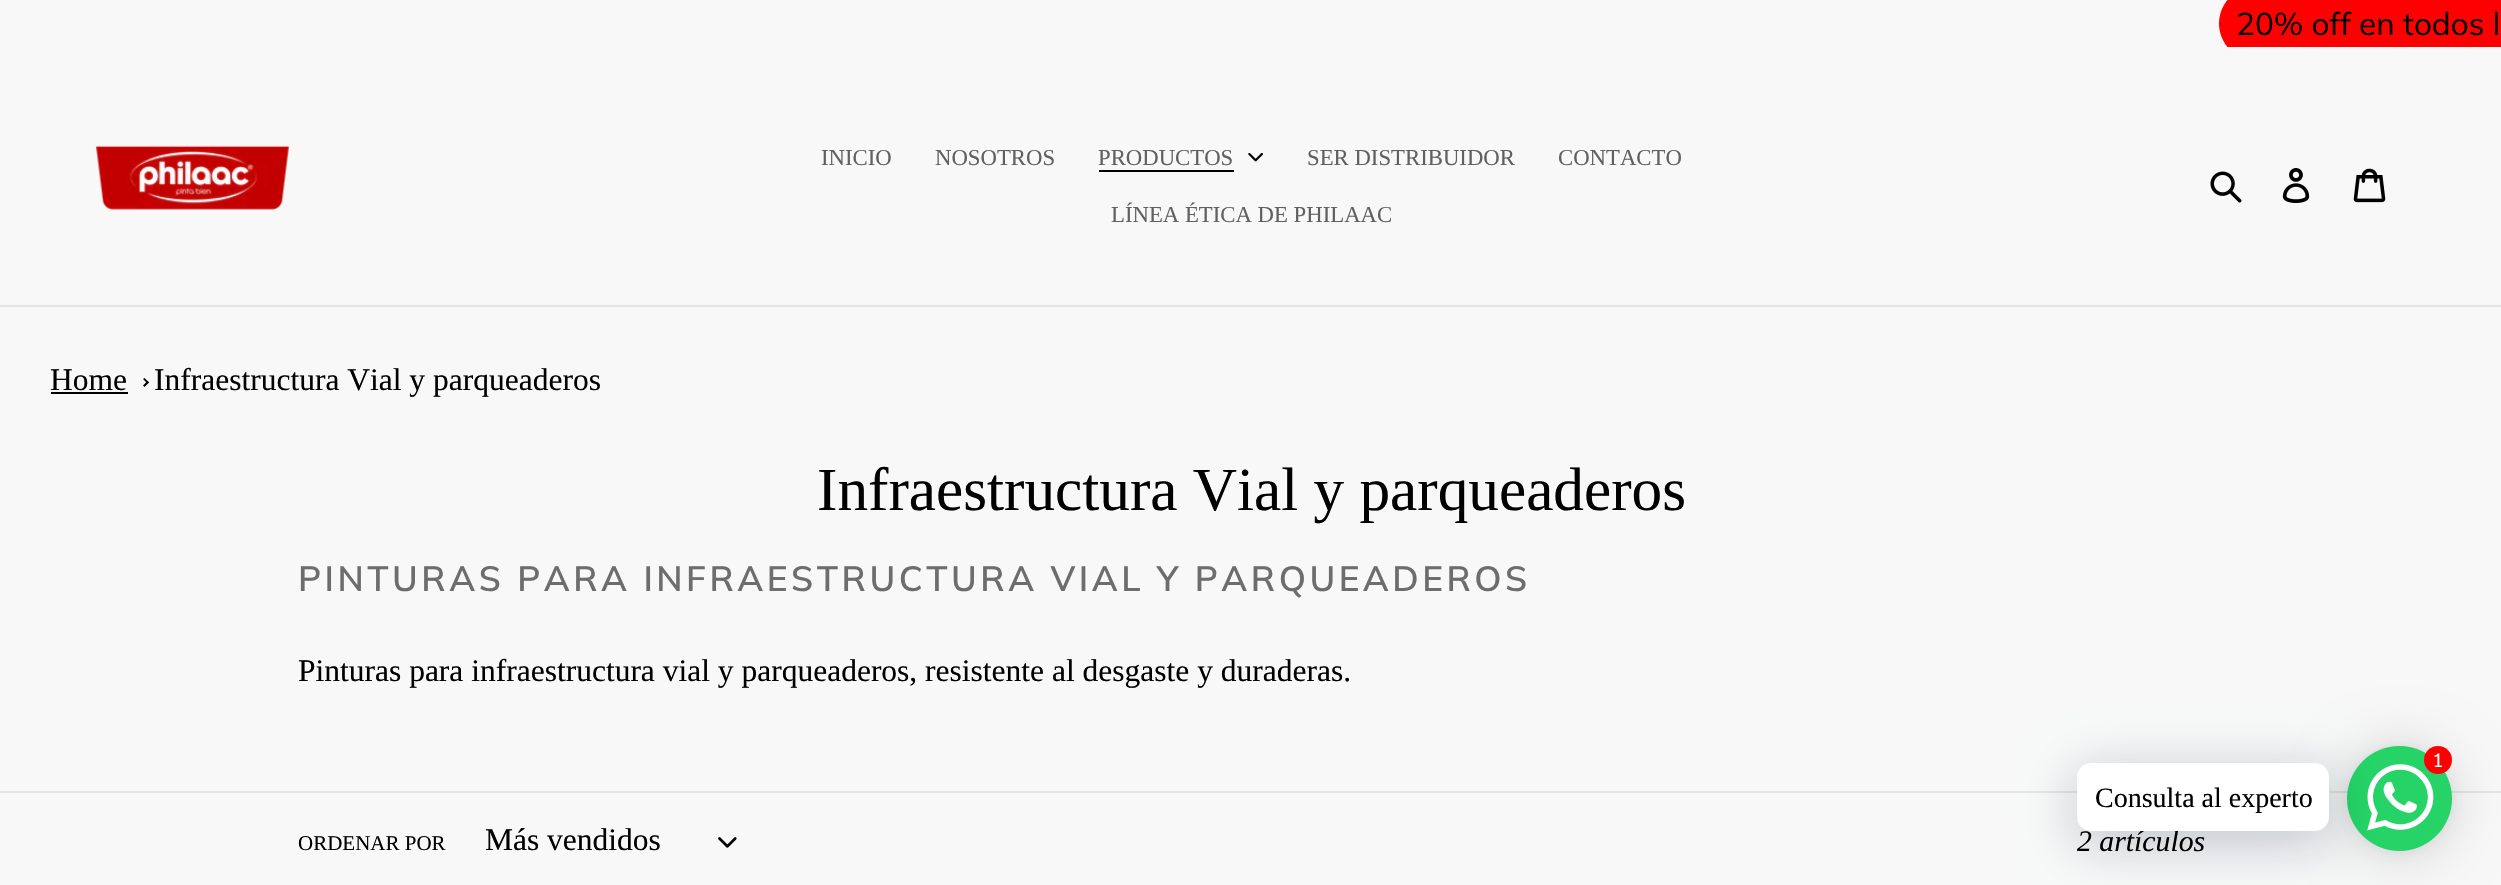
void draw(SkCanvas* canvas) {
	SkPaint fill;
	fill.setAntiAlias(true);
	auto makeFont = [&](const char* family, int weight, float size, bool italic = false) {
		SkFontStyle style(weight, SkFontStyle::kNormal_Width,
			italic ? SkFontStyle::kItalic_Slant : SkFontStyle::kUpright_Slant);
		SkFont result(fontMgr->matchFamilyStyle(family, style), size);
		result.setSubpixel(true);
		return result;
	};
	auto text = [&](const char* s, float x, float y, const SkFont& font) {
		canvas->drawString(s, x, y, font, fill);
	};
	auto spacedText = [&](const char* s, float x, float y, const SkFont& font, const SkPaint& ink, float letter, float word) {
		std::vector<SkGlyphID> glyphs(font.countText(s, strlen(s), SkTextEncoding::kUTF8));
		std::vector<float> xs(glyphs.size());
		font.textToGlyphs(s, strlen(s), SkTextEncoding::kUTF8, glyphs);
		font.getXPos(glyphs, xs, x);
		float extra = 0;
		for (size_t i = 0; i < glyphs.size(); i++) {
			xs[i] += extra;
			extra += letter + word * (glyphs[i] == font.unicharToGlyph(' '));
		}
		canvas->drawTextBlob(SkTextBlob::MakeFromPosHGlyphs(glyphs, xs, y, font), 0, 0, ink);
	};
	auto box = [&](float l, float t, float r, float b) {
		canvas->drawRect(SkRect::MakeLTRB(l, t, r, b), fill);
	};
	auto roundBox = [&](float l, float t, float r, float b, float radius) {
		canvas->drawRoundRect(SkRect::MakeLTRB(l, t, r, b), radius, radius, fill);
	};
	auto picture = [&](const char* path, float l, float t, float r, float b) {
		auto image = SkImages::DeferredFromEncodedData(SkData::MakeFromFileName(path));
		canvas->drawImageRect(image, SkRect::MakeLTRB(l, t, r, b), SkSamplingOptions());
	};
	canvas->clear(0xFFF8F8F8);
	canvas->save();
	canvas->clipRect(SkRect::MakeLTRB(0, 0, 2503, 47));
	fill.setColor(0xFFFF0000);
	canvas->drawPath(SkPathBuilder().moveTo(2256.5f, -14).lineTo(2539, -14).lineTo(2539, 61).lineTo(2256.5f, 61).cubicTo(2236, 61, 2219, 44, 2219, 23.5f).cubicTo(2219, 3, 2236, -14, 2256.5f, -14).close().detach(), fill);
	canvas->restore();
	fill.setColor(0xFFE4E4E4);
	box(0, 305, 2501, 307);
	picture("image0.png", 96, 145, 289, 210);
	fill.setColor(0xFF000000);
	box(1099, 170, 1234, 172);
	picture("image1.png", 1248, 152, 1263, 162);
	picture("image2.png", 2210, 171, 2242, 203);
	picture("image3.png", 2282, 168, 2310, 203);
	picture("image4.png", 2353, 168, 2386, 203);
	box(51, 392, 128, 394);
	canvas->drawPath(SkPathBuilder().moveTo(144.5f, 378).lineTo(149, 382.5f).lineTo(147.5f, 383.5f).lineTo(143, 379).close().detach(), fill);
	canvas->drawPath(SkPathBuilder().moveTo(147.5f, 381).lineTo(149, 382.5f).lineTo(144.5f, 387).lineTo(143, 385.5f).close().detach(), fill);
	fill.setColor(0xFFE4E4E4);
	box(0, 791, 2501, 793);
	picture("image5.png", 718, 837, 737, 848);
	fill.setColor(0x29000000);
	fill.setMaskFilter(SkMaskFilter::MakeBlur(kNormal_SkBlurStyle, 28));
	canvas->drawRoundRect(SkRect::MakeLTRB(2347, 749, 2452, 854), 52.5f, 52.5f, fill);
	fill.setMaskFilter(nullptr);
	fill.setColor(0x0F000000);
	fill.setMaskFilter(SkMaskFilter::MakeBlur(kNormal_SkBlurStyle, 5));
	canvas->drawRoundRect(SkRect::MakeLTRB(2347, 747, 2452, 852), 52.5f, 52.5f, fill);
	fill.setMaskFilter(nullptr);
	fill.setColor(0xFF25D366);
	canvas->drawCircle(2399.5f, 798.5f, 52.5f, fill);
	fill.setColor(0x3D00122E);
	fill.setMaskFilter(SkMaskFilter::MakeBlur(kNormal_SkBlurStyle, 28));
	canvas->drawRoundRect(SkRect::MakeLTRB(2077, 774, 2329, 842), 14, 14, fill);
	fill.setMaskFilter(nullptr);
	picture("image6.png", 2367, 764, 2434, 831);
	fill.setColor(0xFFFF0000);
	canvas->drawCircle(2438, 760, 14, fill);
	auto font1 = makeFont("Muli", 400, 31.5f);
	fill.setColor(0xFF000000);
	text("20% off en todos l", 2236, 35, font1);
	auto font2 = makeFont("Liberation Serif", 400, 22.75f);
	fill.setColor(0xFF606060);
	text("INICIO", 821, 165, font2);
	text("NOSOTROS", 935, 165, font2);
	text("PRODUCTOS", 1098, 165, font2);
	text("SER DISTRIBUIDOR", 1307, 165, font2);
	text("CONTACTO", 1558, 165, font2);
	text("LÍNEA ÉTICA DE PHILAAC", 1111, 222, font2);
	auto font3 = makeFont("Liberation Serif", 400, 31.5f);
	fill.setColor(0xFF000000);
	text("Home", 50, 390, font3);
	text("Infraestructura Vial y parqueaderos", 154, 390, font3);
	auto font4 = makeFont("Liberation Serif", 400, 61.25f);
	text("Infraestructura Vial y parqueaderos", 817, 510, font4);
	auto font5 = makeFont("Muli", 600, 35);
	fill.setColor(0xFF6D6D6D);
	spacedText("PINTURAS PARA INFRAESTRUCTURA VIAL Y PARQUEADEROS", 298, 591, font5, fill, 3.5f, 0);
	fill.setColor(0xFF000000);
	text("Pinturas para infraestructura vial y parqueaderos, resistente al desgaste y duraderas.", 298, 681, font3);
	auto font6 = makeFont("Liberation Serif", 400, 21);
	text("ORDENAR POR", 298, 850, font6);
	text("Más vendidos", 485, 850, font3);
	auto font7 = makeFont("Liberation Serif", 400, 29.75f, true);
	text("2 artículos", 2077, 851, font7);
	auto font8 = makeFont("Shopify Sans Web", 400, 19);
	fill.setColor(0xFFFFFFFF);
	text("1", 2434, 767, font8);
	roundBox(2077, 763, 2329, 831, 14);
	auto font9 = makeFont("Liberation Serif", 400, 28);
	fill.setColor(0xFF000000);
	text("Consulta al experto", 2095, 807, font9);
}
